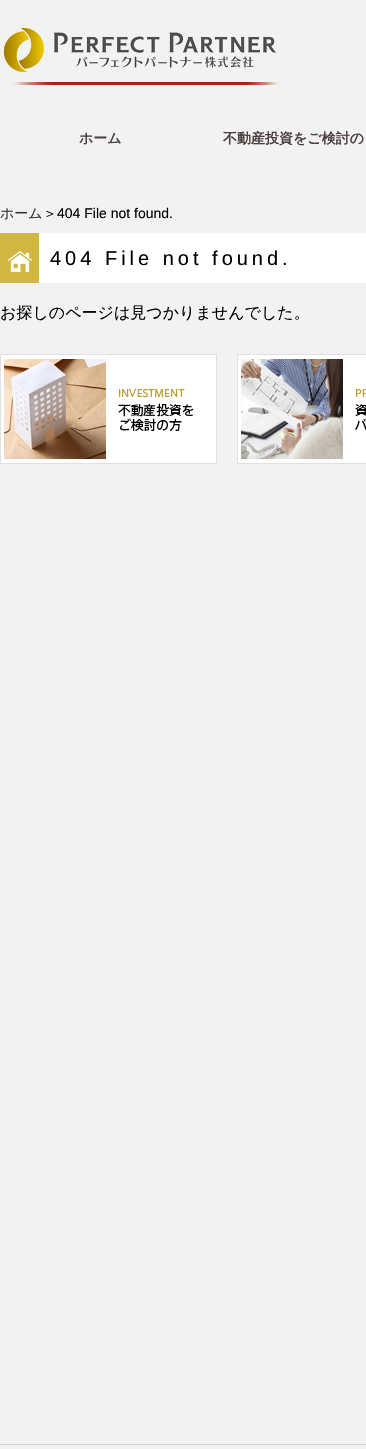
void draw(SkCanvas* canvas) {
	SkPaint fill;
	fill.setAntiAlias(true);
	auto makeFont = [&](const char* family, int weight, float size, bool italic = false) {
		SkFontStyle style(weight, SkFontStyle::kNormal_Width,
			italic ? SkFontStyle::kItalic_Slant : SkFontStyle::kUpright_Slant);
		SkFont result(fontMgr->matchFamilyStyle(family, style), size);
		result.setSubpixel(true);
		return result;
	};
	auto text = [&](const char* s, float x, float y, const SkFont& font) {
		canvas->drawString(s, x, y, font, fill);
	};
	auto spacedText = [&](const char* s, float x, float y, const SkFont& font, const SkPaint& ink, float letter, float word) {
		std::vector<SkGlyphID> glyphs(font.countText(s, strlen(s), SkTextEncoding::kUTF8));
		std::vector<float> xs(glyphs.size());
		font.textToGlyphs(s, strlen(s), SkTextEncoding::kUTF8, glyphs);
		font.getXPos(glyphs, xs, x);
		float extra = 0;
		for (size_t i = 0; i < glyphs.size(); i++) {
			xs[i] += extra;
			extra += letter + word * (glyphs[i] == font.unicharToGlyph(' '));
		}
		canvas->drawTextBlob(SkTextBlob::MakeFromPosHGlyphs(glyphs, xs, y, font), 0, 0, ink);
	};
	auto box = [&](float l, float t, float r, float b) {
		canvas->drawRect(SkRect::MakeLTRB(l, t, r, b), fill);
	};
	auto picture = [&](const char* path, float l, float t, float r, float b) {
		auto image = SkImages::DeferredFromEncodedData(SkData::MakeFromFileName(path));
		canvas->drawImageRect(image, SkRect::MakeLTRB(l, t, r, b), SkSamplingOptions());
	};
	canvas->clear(0xFFF2F2F2);
	picture("image0.png", 3, 28, 279, 85);
	picture("image1.png", 0, 233, 366, 283);
	picture("image2.png", 0, 354, 217, 464);
	picture("image3.png", 237, 354, 366, 464);
	fill.setColor(0xFFD4D4D4);
	box(0, 1444, 366, 1445);
	auto font1 = makeFont("WenQuanYi Zen Hei", 700, 14);
	fill.setColor(0xFF4D3F3F);
	text("ホーム", 79, 143, font1);
	text("不動産投資をご検討の", 223, 143, font1);
	auto font2 = makeFont("WenQuanYi Zen Hei", 500, 14);
	fill.setColor(0xFF333333);
	text("ホーム", 0, 218, font2);
	fill.setColor(0xFF000000);
	text("＞", 43, 218, font2);
	auto font3 = makeFont("Liberation Sans", 400, 14);
	text("404 File not found.", 57, 218, font3);
	auto font4 = makeFont("Liberation Sans", 400, 20);
	spacedText("404 File not found.", 50, 265, font4, fill, 4, 0);
	auto font5 = makeFont("WenQuanYi Zen Hei", 500, 16);
	text("お探しのページは見つかりませんでした。", 0, 318, font5);
}
